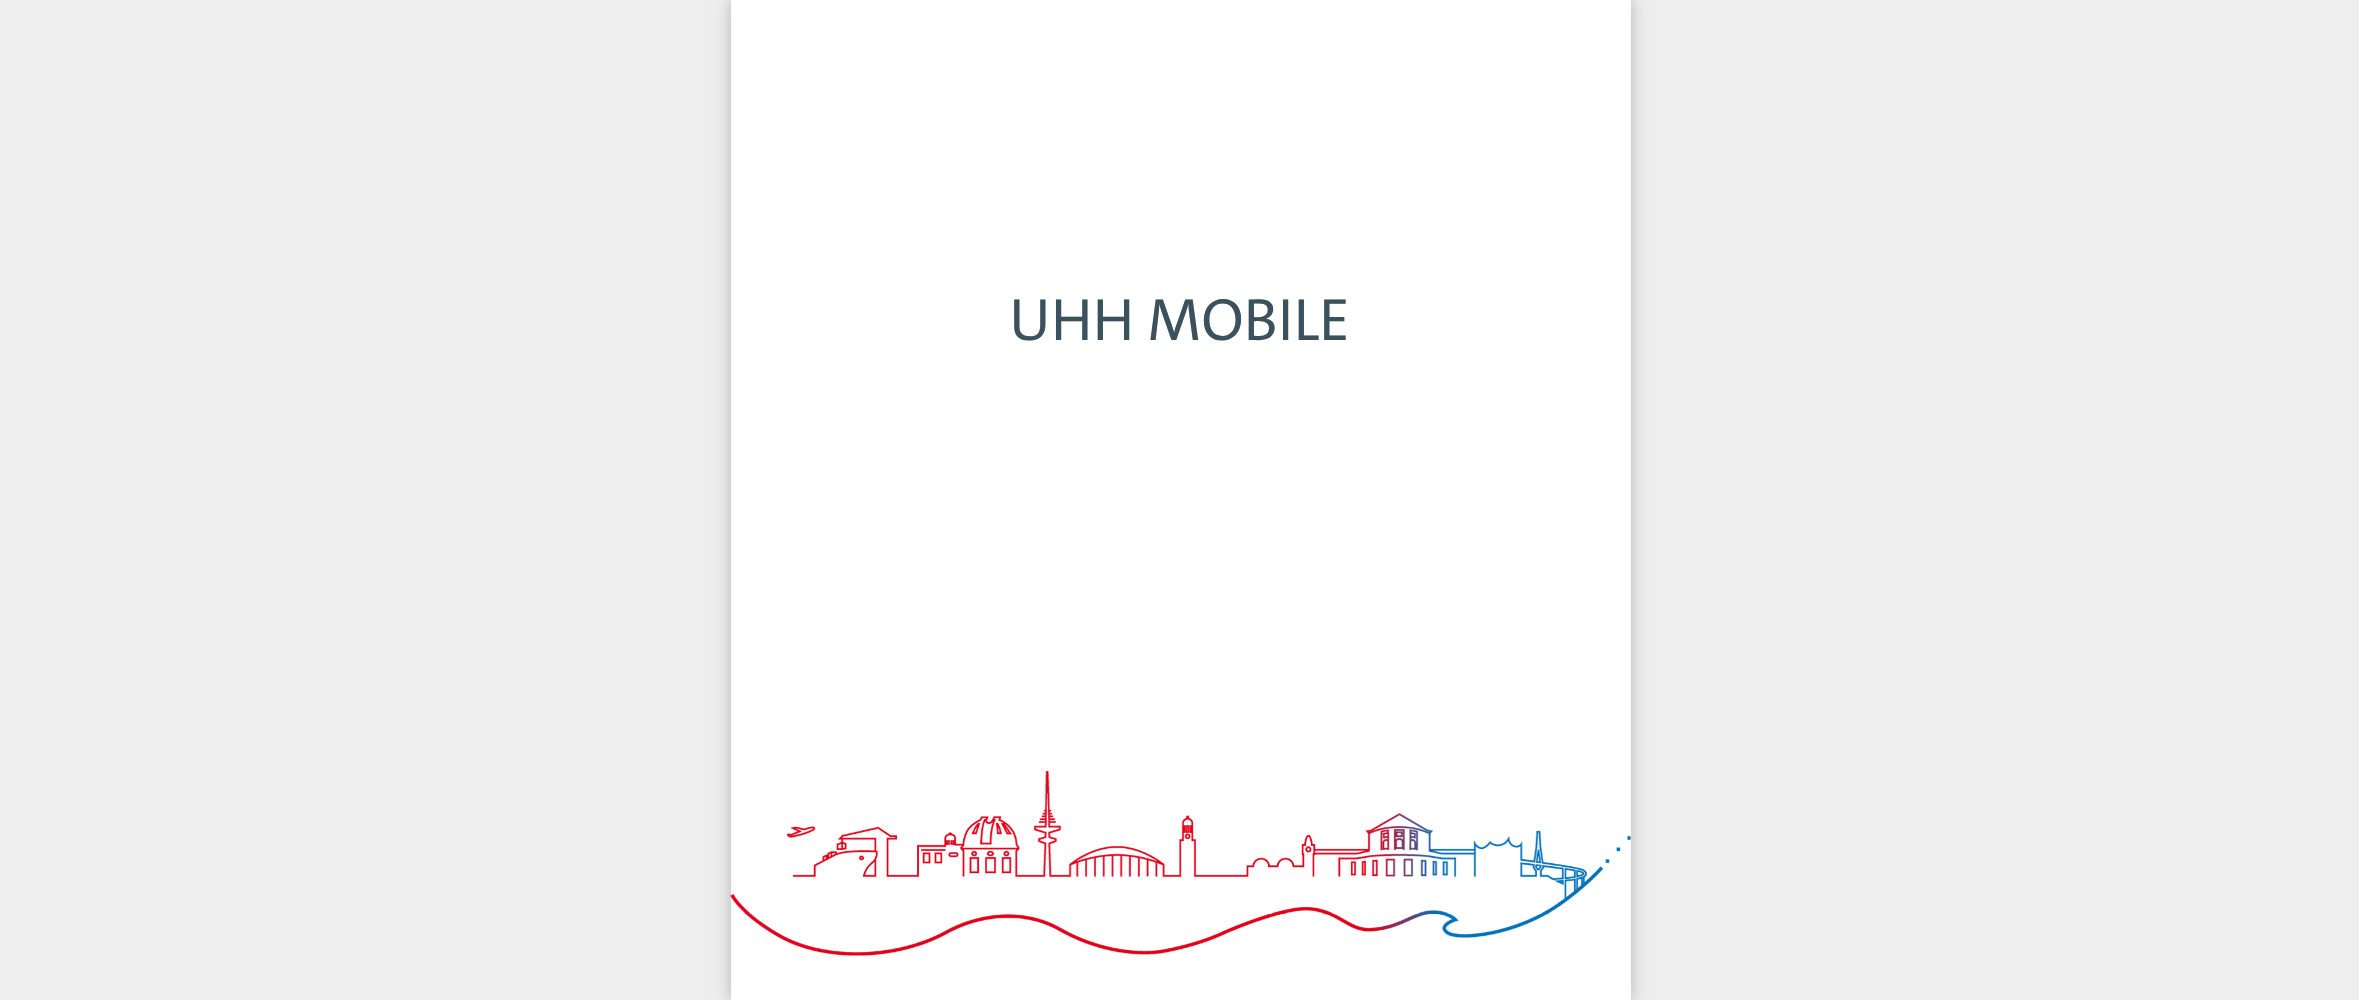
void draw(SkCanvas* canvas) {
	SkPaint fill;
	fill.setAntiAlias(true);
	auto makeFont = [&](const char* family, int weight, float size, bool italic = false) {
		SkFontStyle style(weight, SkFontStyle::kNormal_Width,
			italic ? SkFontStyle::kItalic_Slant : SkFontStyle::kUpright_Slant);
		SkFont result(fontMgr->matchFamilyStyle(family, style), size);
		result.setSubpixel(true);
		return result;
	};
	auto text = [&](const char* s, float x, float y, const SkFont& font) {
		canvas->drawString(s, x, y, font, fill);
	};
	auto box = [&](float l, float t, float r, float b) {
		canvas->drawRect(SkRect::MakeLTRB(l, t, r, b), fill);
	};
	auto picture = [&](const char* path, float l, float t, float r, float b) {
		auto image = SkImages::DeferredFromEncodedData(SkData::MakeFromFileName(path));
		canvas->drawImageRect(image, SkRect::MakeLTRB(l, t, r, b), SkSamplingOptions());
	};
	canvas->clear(0xFFEEEEEE);
	fill.setColor(0x40000000);
	fill.setMaskFilter(SkMaskFilter::MakeBlur(kNormal_SkBlurStyle, 7.5f));
	canvas->drawRect(SkRect::MakeLTRB(731, 0, 1631, 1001), fill);
	fill.setMaskFilter(nullptr);
	fill.setColor(0xFFFFFFFF);
	box(731, 0, 1631, 1000);
	picture("image0.png", 730, 771, 1631, 956);
	auto font1 = makeFont("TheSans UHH", 400, 60);
	fill.setColor(0xFF3B515D);
	text("UHH MOBILE", 1009, 340, font1);
}
